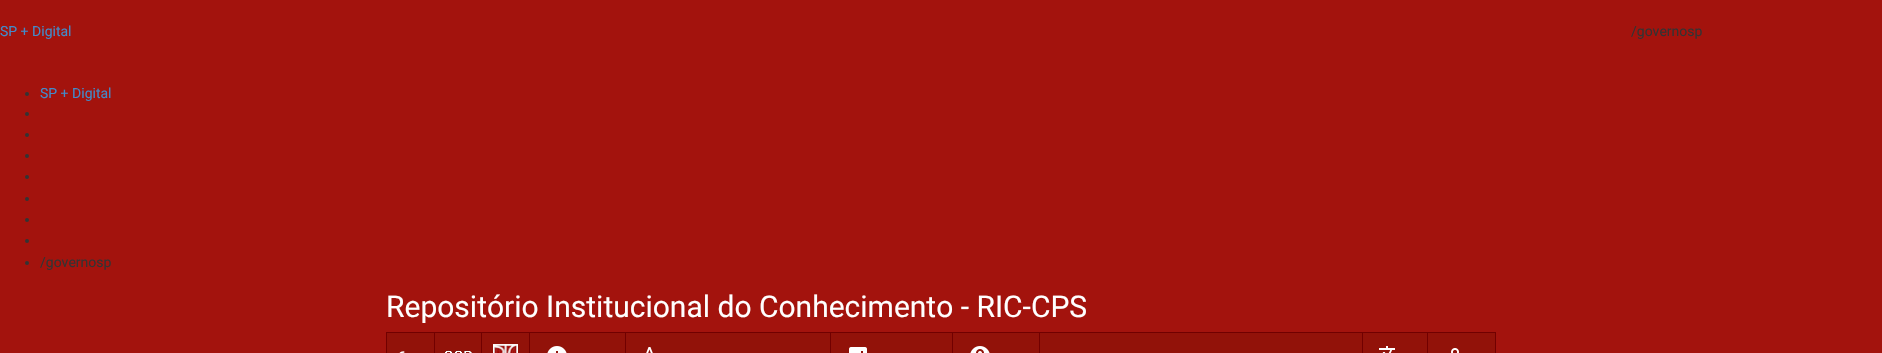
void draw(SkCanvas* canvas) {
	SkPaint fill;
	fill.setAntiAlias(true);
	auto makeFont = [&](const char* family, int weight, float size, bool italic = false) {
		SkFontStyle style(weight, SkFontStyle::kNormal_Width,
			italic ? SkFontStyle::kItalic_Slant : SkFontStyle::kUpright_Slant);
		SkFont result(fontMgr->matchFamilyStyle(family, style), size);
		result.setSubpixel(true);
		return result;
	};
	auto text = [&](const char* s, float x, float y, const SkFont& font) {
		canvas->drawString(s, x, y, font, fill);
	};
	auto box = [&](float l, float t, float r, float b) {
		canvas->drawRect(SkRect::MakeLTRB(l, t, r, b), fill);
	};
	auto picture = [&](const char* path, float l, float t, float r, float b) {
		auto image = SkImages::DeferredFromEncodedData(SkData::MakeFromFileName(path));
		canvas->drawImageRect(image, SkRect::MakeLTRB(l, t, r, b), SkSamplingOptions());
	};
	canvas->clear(0xFFA3130D);
	fill.setColor(0xFF333333);
	canvas->drawCircle(27, 94, 2, fill);
	canvas->drawCircle(27, 114, 2, fill);
	canvas->drawCircle(27, 135, 2, fill);
	canvas->drawCircle(27, 156, 2, fill);
	canvas->drawCircle(27, 177, 2, fill);
	canvas->drawCircle(27, 199, 2, fill);
	canvas->drawCircle(27, 220, 2, fill);
	canvas->drawCircle(27, 241, 2, fill);
	canvas->drawCircle(27, 263, 2, fill);
	fill.setColor(0xFF921209);
	box(387, 333, 1495, 353);
	fill.setColor(0xFF710000);
	box(386, 332, 1496, 333);
	box(1495, 332, 1496, 353);
	box(386, 332, 387, 353);
	box(434, 333, 435, 353);
	picture("image0.png", 399, 351, 405, 353);
	box(481, 333, 482, 353);
	picture("image1.png", 444, 350, 472, 353);
	box(529, 333, 530, 353);
	picture("image2.png", 493, 344, 518, 353);
	box(625, 333, 626, 353);
	picture("image3.png", 547, 346, 567, 353);
	box(830, 333, 831, 353);
	picture("image4.png", 646, 347, 653, 353);
	box(952, 333, 953, 353);
	picture("image5.png", 849, 347, 867, 353);
	box(1039, 333, 1040, 353);
	picture("image6.png", 970, 346, 990, 353);
	box(1362, 333, 1363, 353);
	picture("image7.png", 1379, 346, 1395, 353);
	box(1427, 333, 1428, 353);
	picture("image8.png", 1451, 348, 1459, 353);
	auto font1 = makeFont("Roboto", 400, 14);
	fill.setColor(0xFF428BCA);
	text("SP + Digital", 0, 36, font1);
	fill.setColor(0xFF333333);
	text("/governosp", 1631, 36, font1);
	fill.setColor(0xFF428BCA);
	text("SP + Digital", 40, 98, font1);
	fill.setColor(0xFF333333);
	text("/governosp", 40, 267, font1);
	auto font2 = makeFont("Roboto", 400, 30);
	fill.setColor(0xFFFFFFFF);
	text("Repositório Institucional do Conhecimento - RIC-CPS", 386, 317, font2);
}
